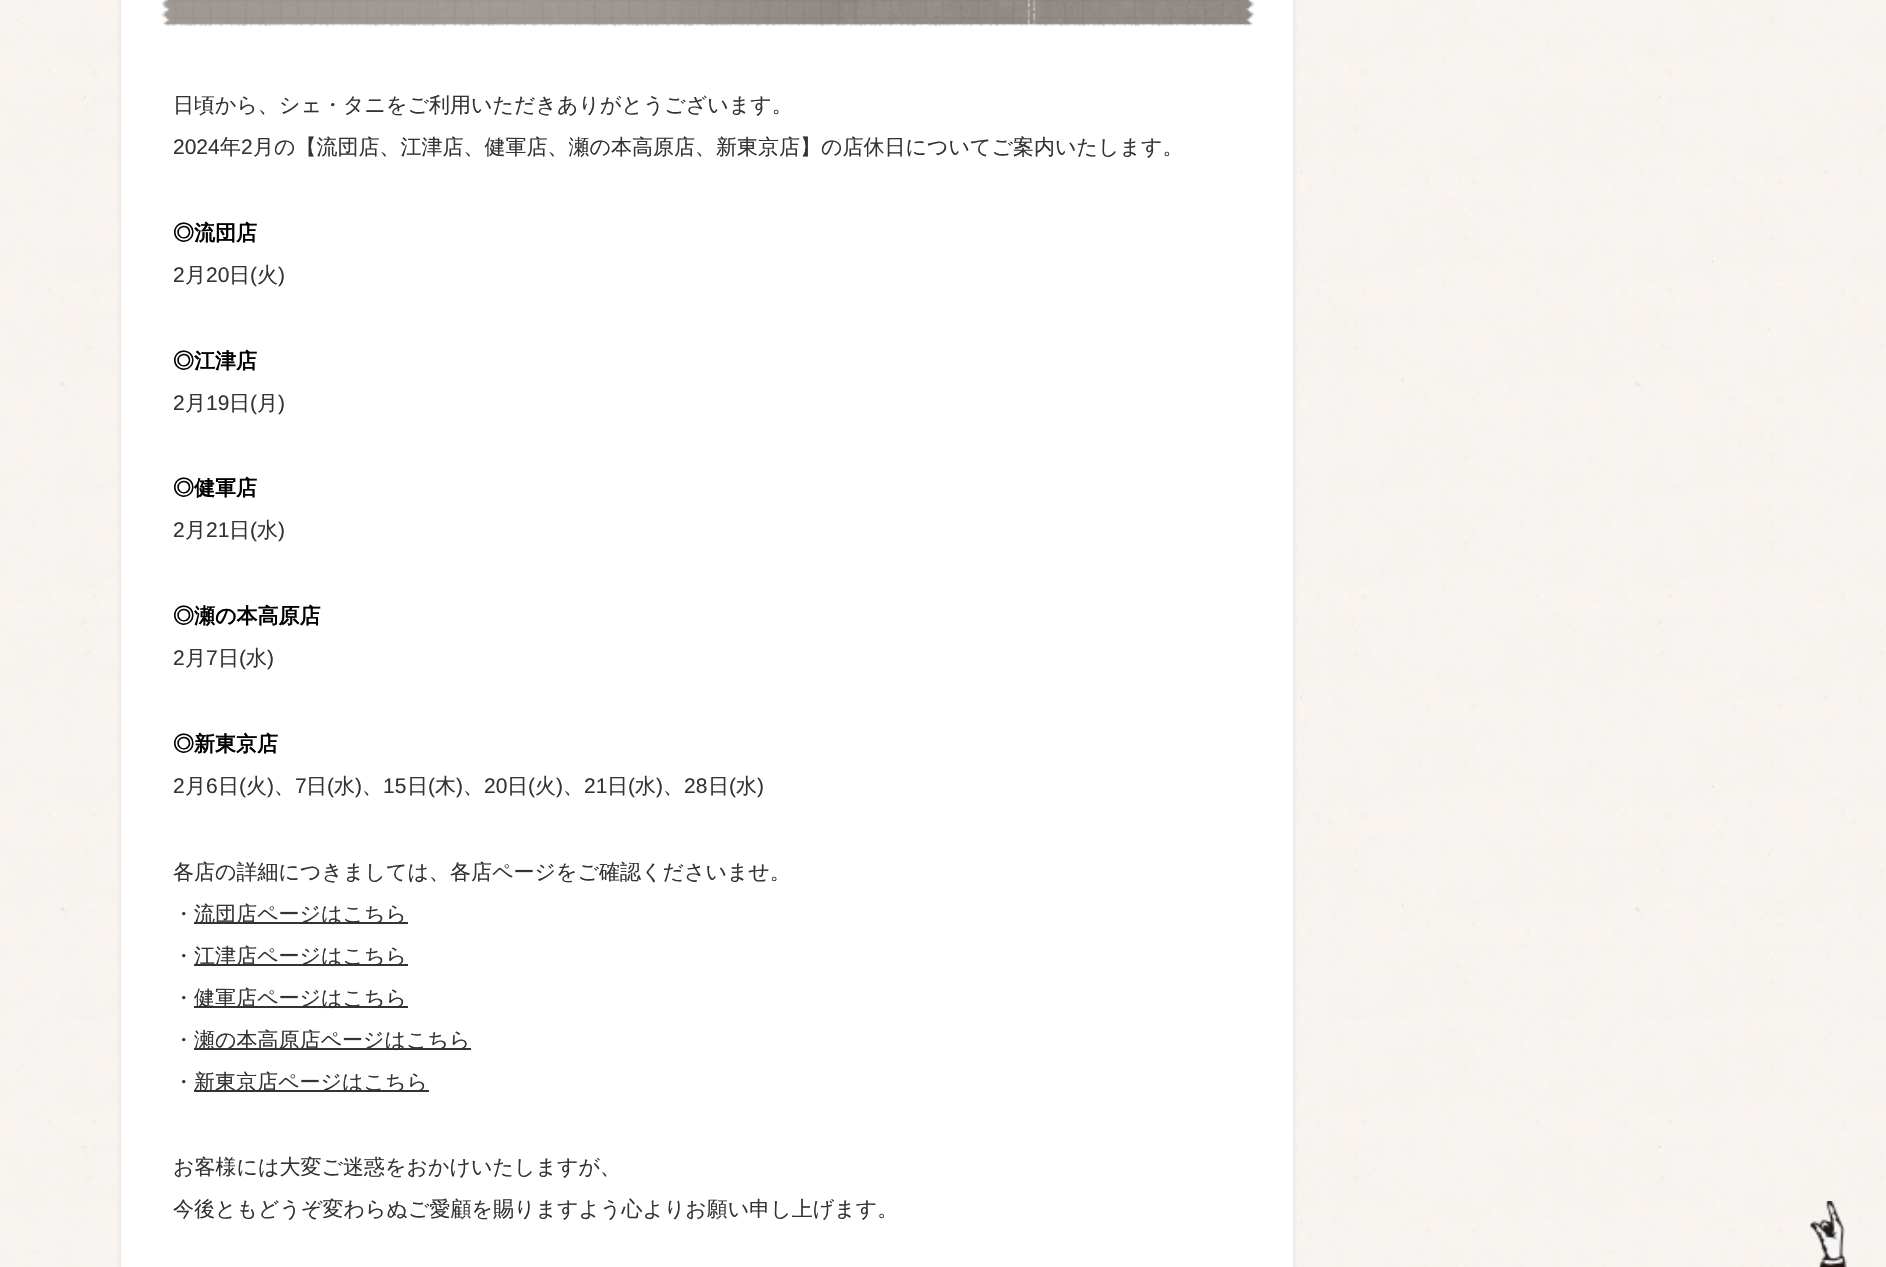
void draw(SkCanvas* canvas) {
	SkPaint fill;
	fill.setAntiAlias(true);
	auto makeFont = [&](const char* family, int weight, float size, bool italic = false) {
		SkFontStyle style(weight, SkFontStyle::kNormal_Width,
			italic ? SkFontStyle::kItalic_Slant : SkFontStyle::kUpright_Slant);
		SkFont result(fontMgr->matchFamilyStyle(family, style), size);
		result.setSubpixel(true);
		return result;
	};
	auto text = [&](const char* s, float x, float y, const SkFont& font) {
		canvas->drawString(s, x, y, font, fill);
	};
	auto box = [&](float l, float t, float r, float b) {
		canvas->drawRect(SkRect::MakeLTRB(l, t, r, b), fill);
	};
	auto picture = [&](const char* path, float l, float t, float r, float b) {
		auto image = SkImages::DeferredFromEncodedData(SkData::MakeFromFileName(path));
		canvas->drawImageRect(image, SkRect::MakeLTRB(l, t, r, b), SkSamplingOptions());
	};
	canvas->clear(0xFFFFFFFF);
	picture("image0.png", 0, 0, 1886, 1267);
	fill.setColor(0x1A000000);
	fill.setMaskFilter(SkMaskFilter::MakeBlur(kNormal_SkBlurStyle, 2));
	canvas->drawRoundRect(SkRect::MakeLTRB(121, -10, 1293, 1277), 4, 4, fill);
	fill.setMaskFilter(nullptr);
	fill.setColor(0xFFFFFFFF);
	box(121, 0, 1293, 1267);
	picture("image1.png", 161, 0, 1255, 26);
	fill.setColor(0xFF333333);
	box(194, 922, 408, 924);
	box(194, 964, 408, 966);
	box(194, 1006, 408, 1008);
	box(194, 1048, 471, 1050);
	box(194, 1090, 429, 1092);
	picture("image2.png", 1810, 1201, 1847, 1267);
	auto font1 = makeFont("WenQuanYi Zen Hei", 500, 21);
	text("日頃から、シェ・タニをご利用いただきありがとうございます。", 173, 112, font1);
	auto font2 = makeFont("Liberation Sans", 400, 21);
	text("2024", 173, 154, font2);
	text("年", 220, 154, font1);
	text("2", 241, 154, font2);
	text("月の【流団店、江津店、健軍店、瀬の本高原店、新東京店】の店休日についてご案内いたします。", 253, 154, font1);
	auto font3 = makeFont("WenQuanYi Zen Hei", 700, 21);
	fill.setColor(0xFF000000);
	text("◎流団店", 173, 240, font3);
	fill.setColor(0xFF333333);
	text("2", 173, 282, font2);
	text("月", 185, 282, font1);
	text("20", 206, 282, font2);
	text("日", 229, 282, font1);
	text("(", 250, 282, font2);
	text("火", 257, 282, font1);
	text(")", 278, 282, font2);
	fill.setColor(0xFF000000);
	text("◎江津店", 173, 368, font3);
	fill.setColor(0xFF333333);
	text("2", 173, 410, font2);
	text("月", 185, 410, font1);
	text("19", 206, 410, font2);
	text("日", 229, 410, font1);
	text("(", 250, 410, font2);
	text("月", 257, 410, font1);
	text(")", 278, 410, font2);
	fill.setColor(0xFF000000);
	text("◎健軍店", 173, 495, font3);
	fill.setColor(0xFF333333);
	text("2", 173, 537, font2);
	text("月", 185, 537, font1);
	text("21", 206, 537, font2);
	text("日", 229, 537, font1);
	text("(", 250, 537, font2);
	text("水", 257, 537, font1);
	text(")", 278, 537, font2);
	fill.setColor(0xFF000000);
	text("◎瀬の本高原店", 173, 623, font3);
	fill.setColor(0xFF333333);
	text("2", 173, 665, font2);
	text("月", 185, 665, font1);
	text("7", 206, 665, font2);
	text("日", 218, 665, font1);
	text("(", 239, 665, font2);
	text("水", 246, 665, font1);
	text(")", 267, 665, font2);
	fill.setColor(0xFF000000);
	text("◎新東京店", 173, 751, font3);
	fill.setColor(0xFF333333);
	text("2", 173, 793, font2);
	text("月", 185, 793, font1);
	text("6", 206, 793, font2);
	text("日", 218, 793, font1);
	text("(", 239, 793, font2);
	text("火", 246, 793, font1);
	text(")", 267, 793, font2);
	text("、", 274, 793, font1);
	text("7", 295, 793, font2);
	text("日", 306, 793, font1);
	text("(", 327, 793, font2);
	text("水", 334, 793, font1);
	text(")", 355, 793, font2);
	text("、", 362, 793, font1);
	text("15", 383, 793, font2);
	text("日", 407, 793, font1);
	text("(", 428, 793, font2);
	text("木", 435, 793, font1);
	text(")", 456, 793, font2);
	text("、", 463, 793, font1);
	text("20", 484, 793, font2);
	text("日", 507, 793, font1);
	text("(", 528, 793, font2);
	text("火", 535, 793, font1);
	text(")", 556, 793, font2);
	text("、", 563, 793, font1);
	text("21", 584, 793, font2);
	text("日", 607, 793, font1);
	text("(", 628, 793, font2);
	text("水", 635, 793, font1);
	text(")", 656, 793, font2);
	text("、", 663, 793, font1);
	text("28", 684, 793, font2);
	text("日", 708, 793, font1);
	text("(", 729, 793, font2);
	text("水", 736, 793, font1);
	text(")", 757, 793, font2);
	text("各店の詳細につきましては、各店ページをご確認くださいませ。", 173, 879, font1);
	text("・", 173, 921, font1);
	text("流団店ページはこちら", 194, 921, font1);
	text("・", 173, 963, font1);
	text("江津店ページはこちら", 194, 963, font1);
	text("・", 173, 1005, font1);
	text("健軍店ページはこちら", 194, 1005, font1);
	text("・", 173, 1047, font1);
	text("瀬の本高原店ページはこちら", 194, 1047, font1);
	text("・", 173, 1089, font1);
	text("新東京店ページはこちら", 194, 1089, font1);
	text("お客様には大変ご迷惑をおかけいたしますが、", 173, 1174, font1);
	text("今後ともどうぞ変わらぬご愛顧を賜りますよう心よりお願い申し上げます。", 173, 1216, font1);
}
